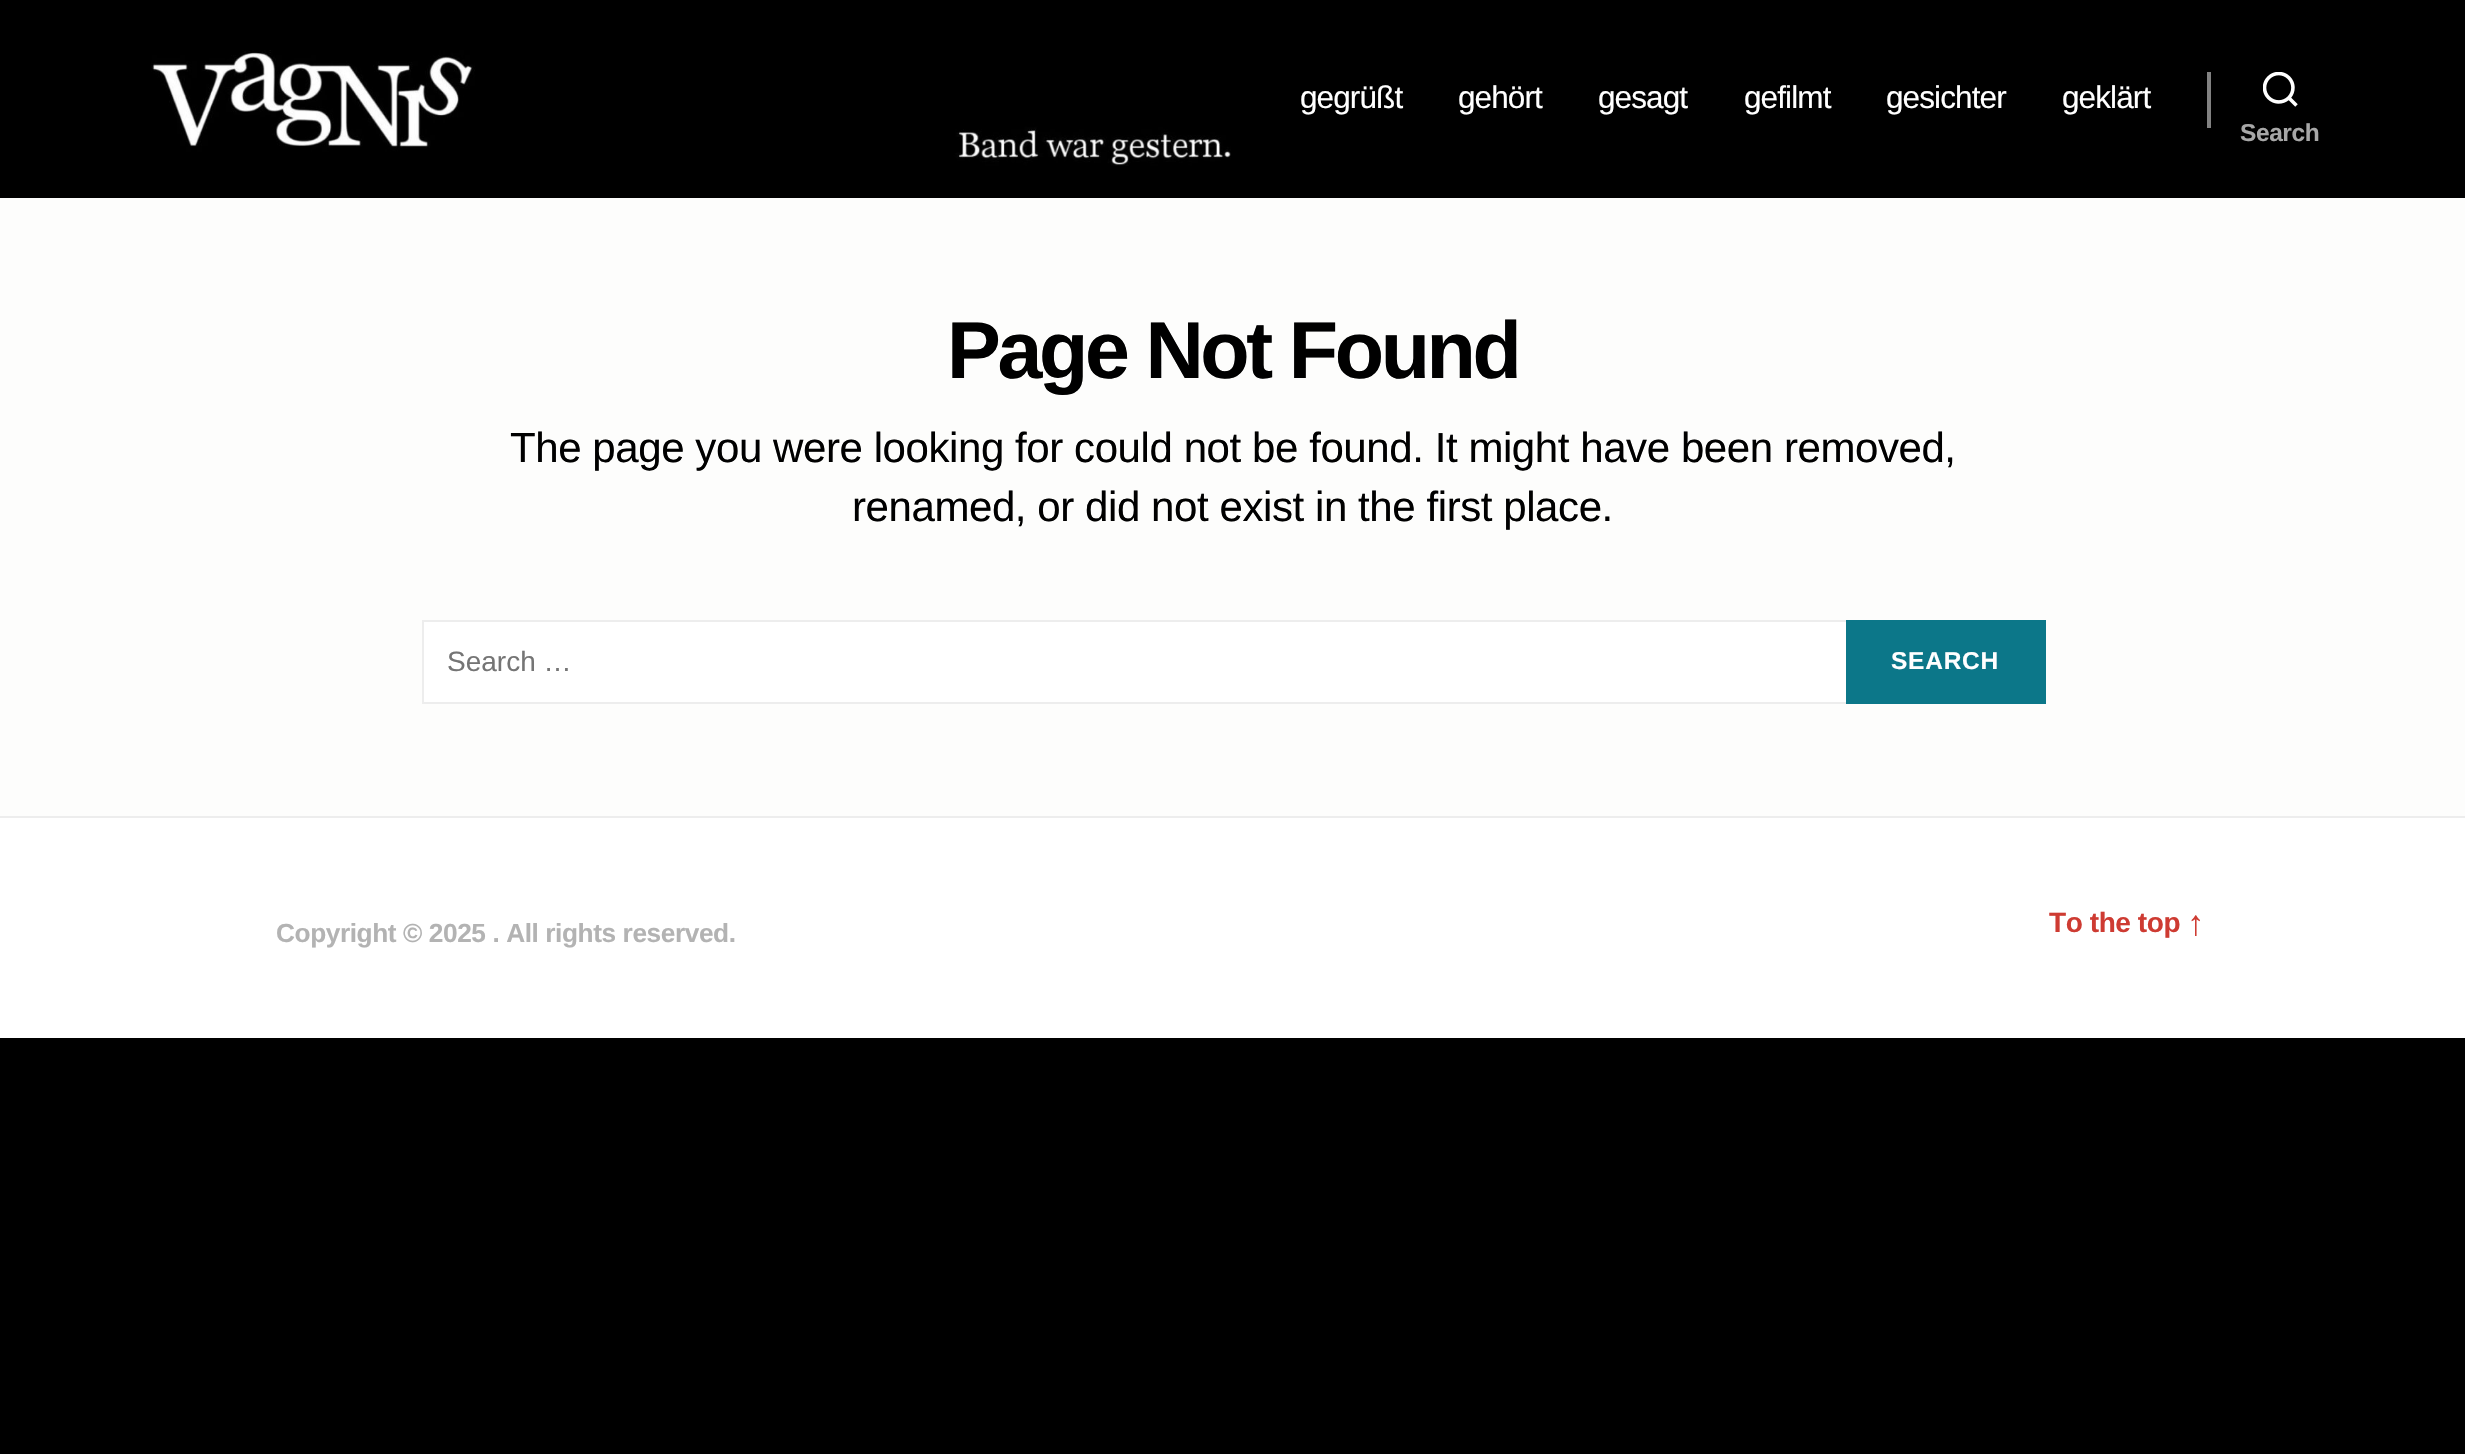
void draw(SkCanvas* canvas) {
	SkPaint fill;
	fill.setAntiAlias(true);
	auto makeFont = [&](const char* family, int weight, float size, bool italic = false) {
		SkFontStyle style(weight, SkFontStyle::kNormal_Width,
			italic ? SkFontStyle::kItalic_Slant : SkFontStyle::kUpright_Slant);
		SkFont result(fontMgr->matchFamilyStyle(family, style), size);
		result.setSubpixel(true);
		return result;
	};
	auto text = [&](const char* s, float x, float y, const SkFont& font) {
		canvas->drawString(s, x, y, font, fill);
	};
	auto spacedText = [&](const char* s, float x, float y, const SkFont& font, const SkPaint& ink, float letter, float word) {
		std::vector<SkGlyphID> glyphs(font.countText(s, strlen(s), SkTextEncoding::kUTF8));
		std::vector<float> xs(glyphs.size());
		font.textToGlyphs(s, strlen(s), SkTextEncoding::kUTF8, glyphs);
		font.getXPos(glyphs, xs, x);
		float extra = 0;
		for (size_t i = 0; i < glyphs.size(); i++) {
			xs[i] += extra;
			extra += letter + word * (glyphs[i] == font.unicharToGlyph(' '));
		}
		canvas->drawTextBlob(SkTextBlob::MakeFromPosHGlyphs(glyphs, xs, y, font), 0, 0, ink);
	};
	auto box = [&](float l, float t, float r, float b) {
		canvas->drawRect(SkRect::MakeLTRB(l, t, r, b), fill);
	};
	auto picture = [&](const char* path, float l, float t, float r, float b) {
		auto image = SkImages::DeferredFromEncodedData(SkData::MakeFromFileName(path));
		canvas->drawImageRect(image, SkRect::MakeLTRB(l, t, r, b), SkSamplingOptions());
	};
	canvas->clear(0xFF000000);
	picture("image0.png", 151, 50, 1231, 166);
	fill.setColor(0xFF828282);
	box(2207, 72, 2211, 128);
	picture("image1.png", 2263, 72, 2298, 107);
	fill.setColor(0xFFFDFDFC);
	box(0, 198, 2465, 816);
	fill.setColor(0xFFFFFFFF);
	box(424, 622, 1846, 702);
	fill.setColor(0xFFEDEDED);
	box(422, 620, 1846, 622);
	box(422, 702, 1846, 704);
	box(422, 620, 424, 704);
	fill.setColor(0xFF0C7789);
	box(1846, 620, 2046, 704);
	fill.setColor(0xFFFFFFFF);
	box(0, 818, 2465, 1038);
	fill.setColor(0xFFEDEDED);
	box(0, 816, 2465, 818);
	auto font1 = makeFont("Liberation Sans", 400, 31.5f);
	fill.setColor(0xFFFFFFFF);
	spacedText("gegrüßt", 1300, 108, font1, fill, -0.9f, 0);
	spacedText("gehört", 1458, 108, font1, fill, -0.9f, 0);
	spacedText("gesagt", 1598, 108, font1, fill, -0.9f, 0);
	spacedText("gefilmt", 1744, 108, font1, fill, -0.9f, 0);
	spacedText("gesichter", 1886, 108, font1, fill, -0.9f, 0);
	spacedText("geklärt", 2062, 108, font1, fill, -0.9f, 0);
	auto font2 = makeFont("Liberation Sans", 700, 24.5f);
	fill.setColor(0xFFA7A7A7);
	spacedText("Search", 2240, 141, font2, fill, -0.42f, 0);
	auto font3 = makeFont("Liberation Sans", 700, 80.75f);
	fill.setColor(0xFF000000);
	spacedText("Page Not Found", 947, 378, font3, fill, -3.4f, 0);
	auto font4 = makeFont("Liberation Sans", 400, 42);
	spacedText("The page you were looking for could not be found. It might have been removed,", 510, 462, font4, fill, -0.42f, 0);
	spacedText("renamed, or did not exist in the first place.", 852, 521, font4, fill, -0.42f, 0);
	auto font5 = makeFont("Liberation Sans", 400, 28);
	fill.setColor(0xFF757575);
	text("Search …", 447, 671, font5);
	fill.setColor(0xFFFFFFFF);
	spacedText("SEARCH", 1891, 669, font2, fill, 0.75f, 0);
	auto font6 = makeFont("Liberation Sans", 700, 26.25f);
	fill.setColor(0xFFB3B3B3);
	spacedText("Copyright © 2025 . All rights reserved.", 276, 942, font6, fill, -0.42f, 0);
	auto font7 = makeFont("Liberation Sans", 700, 28);
	fill.setColor(0xFFCE3B32);
	spacedText("To the top", 2049, 932, font7, fill, -0.42f, 0);
	auto font8 = makeFont("Liberation Sans", 700, 35);
	spacedText("↑", 2187, 935, font8, fill, -0.42f, 0);
}
